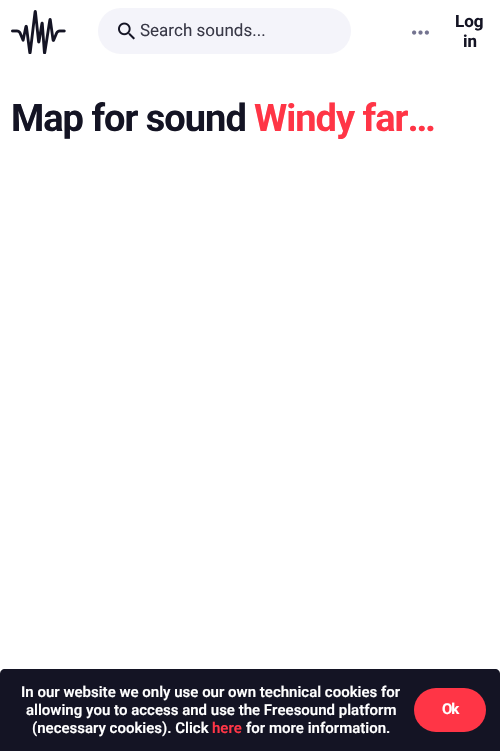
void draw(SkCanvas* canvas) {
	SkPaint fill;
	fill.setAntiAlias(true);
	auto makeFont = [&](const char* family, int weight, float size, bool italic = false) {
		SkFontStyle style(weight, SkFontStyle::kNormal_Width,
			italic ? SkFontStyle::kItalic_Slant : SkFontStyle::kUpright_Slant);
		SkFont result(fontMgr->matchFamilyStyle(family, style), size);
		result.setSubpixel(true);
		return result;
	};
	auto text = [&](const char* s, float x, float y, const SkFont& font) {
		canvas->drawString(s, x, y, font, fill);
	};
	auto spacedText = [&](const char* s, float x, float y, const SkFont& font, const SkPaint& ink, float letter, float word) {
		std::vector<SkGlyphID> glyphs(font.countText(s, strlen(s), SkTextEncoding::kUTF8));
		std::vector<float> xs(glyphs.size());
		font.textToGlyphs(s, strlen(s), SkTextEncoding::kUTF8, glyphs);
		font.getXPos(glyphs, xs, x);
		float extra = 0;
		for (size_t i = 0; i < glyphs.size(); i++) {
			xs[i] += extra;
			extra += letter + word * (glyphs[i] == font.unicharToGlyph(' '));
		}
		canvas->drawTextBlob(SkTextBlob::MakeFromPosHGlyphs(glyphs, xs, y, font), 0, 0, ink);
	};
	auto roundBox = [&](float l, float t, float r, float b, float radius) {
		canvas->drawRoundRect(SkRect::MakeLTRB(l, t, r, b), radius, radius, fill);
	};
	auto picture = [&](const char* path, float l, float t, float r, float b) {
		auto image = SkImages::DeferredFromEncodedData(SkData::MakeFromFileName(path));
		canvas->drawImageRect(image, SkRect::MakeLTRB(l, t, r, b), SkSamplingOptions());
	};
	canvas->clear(0xFFFFFFFF);
	picture("image0.png", 11, 10, 66, 54);
	fill.setColor(0xFFF4F4FA);
	roundBox(98, 8, 351, 54, 23);
	picture("image1.png", 118, 22, 135, 40);
	picture("image2.png", 412, 30, 429, 35);
	fill.setColor(0xFF141424);
	canvas->drawPath(SkPathBuilder().moveTo(5, 669).lineTo(495, 669).cubicTo(498, 669, 500, 671, 500, 674).lineTo(500, 751).lineTo(0, 751).lineTo(0, 674).cubicTo(0, 671, 2, 669, 5, 669).close().detach(), fill);
	fill.setColor(0xFFFF3546);
	roundBox(414, 688, 486, 732, 22);
	auto font1 = makeFont("Roboto", 400, 17);
	fill.setColor(0xFF393947);
	text("Search sounds...", 140, 36, font1);
	auto font2 = makeFont("Roboto", 700, 17);
	fill.setColor(0xFF141424);
	text("Log", 455, 27, font2);
	text("in", 463, 47, font2);
	auto font3 = makeFont("Roboto", 700, 38);
	spacedText("Map for sound", 11, 131, font3, fill, -1, 0);
	fill.setColor(0xFFFF3546);
	spacedText("Windy far…", 254, 131, font3, fill, -1, 0);
	auto font4 = makeFont("Roboto", 600, 15);
	fill.setColor(0xFFFFFFFF);
	text("In our website we only use our own technical cookies for", 21, 697, font4);
	text("allowing you to access and use the Freesound platform", 26, 715, font4);
	text("(necessary cookies). Click", 32, 733, font4);
	fill.setColor(0xFFFF3546);
	text("here", 212, 733, font4);
	fill.setColor(0xFFFFFFFF);
	text("for more information.", 246, 733, font4);
	auto font5 = makeFont("Roboto", 700, 15);
	spacedText("Ok", 442, 714, font5, fill, -1, 0);
}
